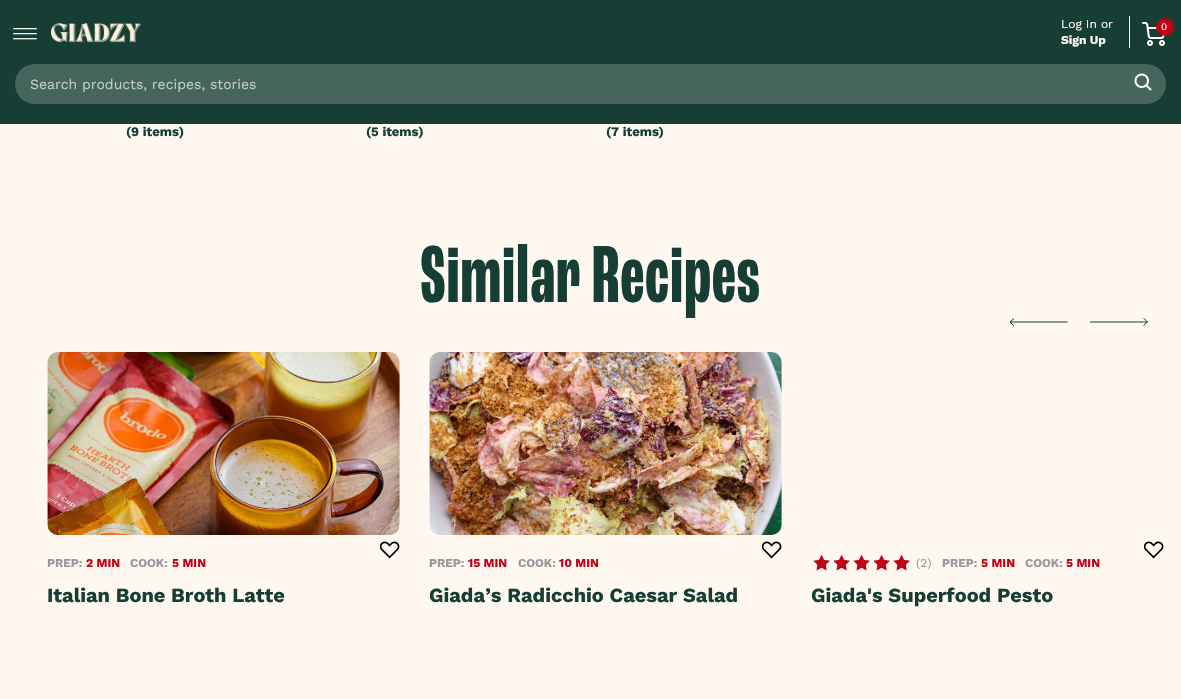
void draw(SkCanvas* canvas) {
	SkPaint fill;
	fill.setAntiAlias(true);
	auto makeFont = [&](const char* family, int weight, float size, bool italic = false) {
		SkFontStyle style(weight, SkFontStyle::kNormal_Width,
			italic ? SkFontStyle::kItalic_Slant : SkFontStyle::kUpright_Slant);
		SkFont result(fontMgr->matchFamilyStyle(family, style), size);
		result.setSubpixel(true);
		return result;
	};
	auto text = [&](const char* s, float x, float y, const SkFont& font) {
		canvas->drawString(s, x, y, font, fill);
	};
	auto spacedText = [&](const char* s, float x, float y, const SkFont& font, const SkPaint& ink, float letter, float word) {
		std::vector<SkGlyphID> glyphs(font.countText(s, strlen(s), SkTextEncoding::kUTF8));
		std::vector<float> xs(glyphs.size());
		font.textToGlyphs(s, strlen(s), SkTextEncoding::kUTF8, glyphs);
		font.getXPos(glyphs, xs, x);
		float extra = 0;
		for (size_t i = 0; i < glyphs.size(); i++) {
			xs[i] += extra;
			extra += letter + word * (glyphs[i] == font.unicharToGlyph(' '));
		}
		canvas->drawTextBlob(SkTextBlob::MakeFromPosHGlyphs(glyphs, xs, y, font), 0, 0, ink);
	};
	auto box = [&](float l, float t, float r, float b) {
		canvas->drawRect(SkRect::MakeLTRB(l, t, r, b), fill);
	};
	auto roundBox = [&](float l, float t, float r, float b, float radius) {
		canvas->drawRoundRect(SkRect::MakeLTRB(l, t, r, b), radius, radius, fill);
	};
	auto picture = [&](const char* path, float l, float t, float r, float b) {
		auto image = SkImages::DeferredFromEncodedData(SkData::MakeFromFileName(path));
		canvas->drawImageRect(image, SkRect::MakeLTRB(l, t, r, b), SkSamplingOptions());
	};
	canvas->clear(0xFFFEF8F1);
	fill.setColor(0xFF163E35);
	box(0, 0, 1181, 124);
	picture("image0.png", 13, 28, 37, 40);
	picture("image1.png", 51, 23, 141, 43);
	fill.setColor(0xFFFEF8F1);
	box(1129, 16, 1130, 48);
	picture("image2.png", 1142, 22, 1165, 46);
	fill.setColor(0xFFC10016);
	canvas->drawCircle(1165, 27, 9, fill);
	fill.setColor(0xFF45655D);
	roundBox(15, 64, 1166, 104, 20);
	picture("image3.png", 1134, 73, 1152, 91);
	fill.setStyle(SkPaint::kStroke_Style);
	fill.setStrokeWidth(1);
	fill.setColor(0xFF173F35);
	canvas->drawPath(SkPathBuilder().moveTo(1014, 318.5f).lineTo(1010, 322).moveTo(1010, 322).lineTo(1014, 326).moveTo(1010, 322).lineTo(1067.5f, 322).detach(), fill);
	canvas->drawPath(SkPathBuilder().moveTo(1143.5f, 325.5f).lineTo(1147.5f, 322).moveTo(1147.5f, 322).lineTo(1143.5f, 318).moveTo(1147.5f, 322).lineTo(1090, 322).detach(), fill);
	picture("image4.png", 47, 352, 400, 535);
	picture("image5.png", 380, 541, 400, 559);
	picture("image6.png", 429, 352, 782, 535);
	picture("image5.png", 762, 541, 782, 559);
	picture("image5.png", 1144, 541, 1164, 559);
	picture("image7.png", 813, 554, 830, 571);
	picture("image7.png", 833, 554, 850, 571);
	picture("image7.png", 853, 554, 870, 571);
	picture("image7.png", 873, 554, 890, 571);
	picture("image7.png", 893, 554, 910, 571);
	auto font1 = makeFont("Work Sans", 400, 12);
	fill.setStyle(SkPaint::kFill_Style);
	fill.setColor(0xFFFEF8F1);
	text("Log In or", 1061, 28, font1);
	auto font2 = makeFont("Work Sans", 700, 12);
	text("Sign Up", 1061, 44, font2);
	auto font3 = makeFont("Work Sans", 400, 10);
	spacedText("0", 1161, 30, font3, fill, 1, 0);
	auto font4 = makeFont("Work Sans", 400, 14);
	fill.setColor(0xFFC7CCC5);
	text("Search products, recipes, stories", 30, 89, font4);
	auto font5 = makeFont("Work Sans", 700, 13);
	fill.setColor(0xFF163E35);
	text("(9 items)", 126, 136, font5);
	text("(5 items)", 366, 136, font5);
	text("(7 items)", 606, 136, font5);
	auto font6 = makeFont("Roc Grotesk", 700, 85);
	text("Similar Recipes", 420, 302, font6);
	fill.setColor(0xFF999999);
	text("PREP:", 47, 567, font2);
	fill.setColor(0xFFC10016);
	text("2 MIN", 86, 567, font2);
	fill.setColor(0xFF999999);
	text("COOK:", 130, 567, font2);
	fill.setColor(0xFFC10016);
	text("5 MIN", 172, 567, font2);
	auto font7 = makeFont("Work Sans", 700, 20);
	fill.setColor(0xFF163E35);
	text("Italian Bone Broth Latte", 47, 602, font7);
	fill.setColor(0xFF999999);
	text("PREP:", 429, 567, font2);
	fill.setColor(0xFFC10016);
	text("15 MIN", 468, 567, font2);
	fill.setColor(0xFF999999);
	text("COOK:", 518, 567, font2);
	fill.setColor(0xFFC10016);
	text("10 MIN", 559, 567, font2);
	fill.setColor(0xFF163E35);
	text("Giada’s Radicchio Caesar Salad", 429, 602, font7);
	fill.setColor(0xFF999999);
	text("(2)", 916, 567, font1);
	text("PREP:", 942, 567, font2);
	fill.setColor(0xFFC10016);
	text("5 MIN", 981, 567, font2);
	fill.setColor(0xFF999999);
	text("COOK:", 1025, 567, font2);
	fill.setColor(0xFFC10016);
	text("5 MIN", 1066, 567, font2);
	fill.setColor(0xFF163E35);
	text("Giada's Superfood Pesto", 811, 602, font7);
}
